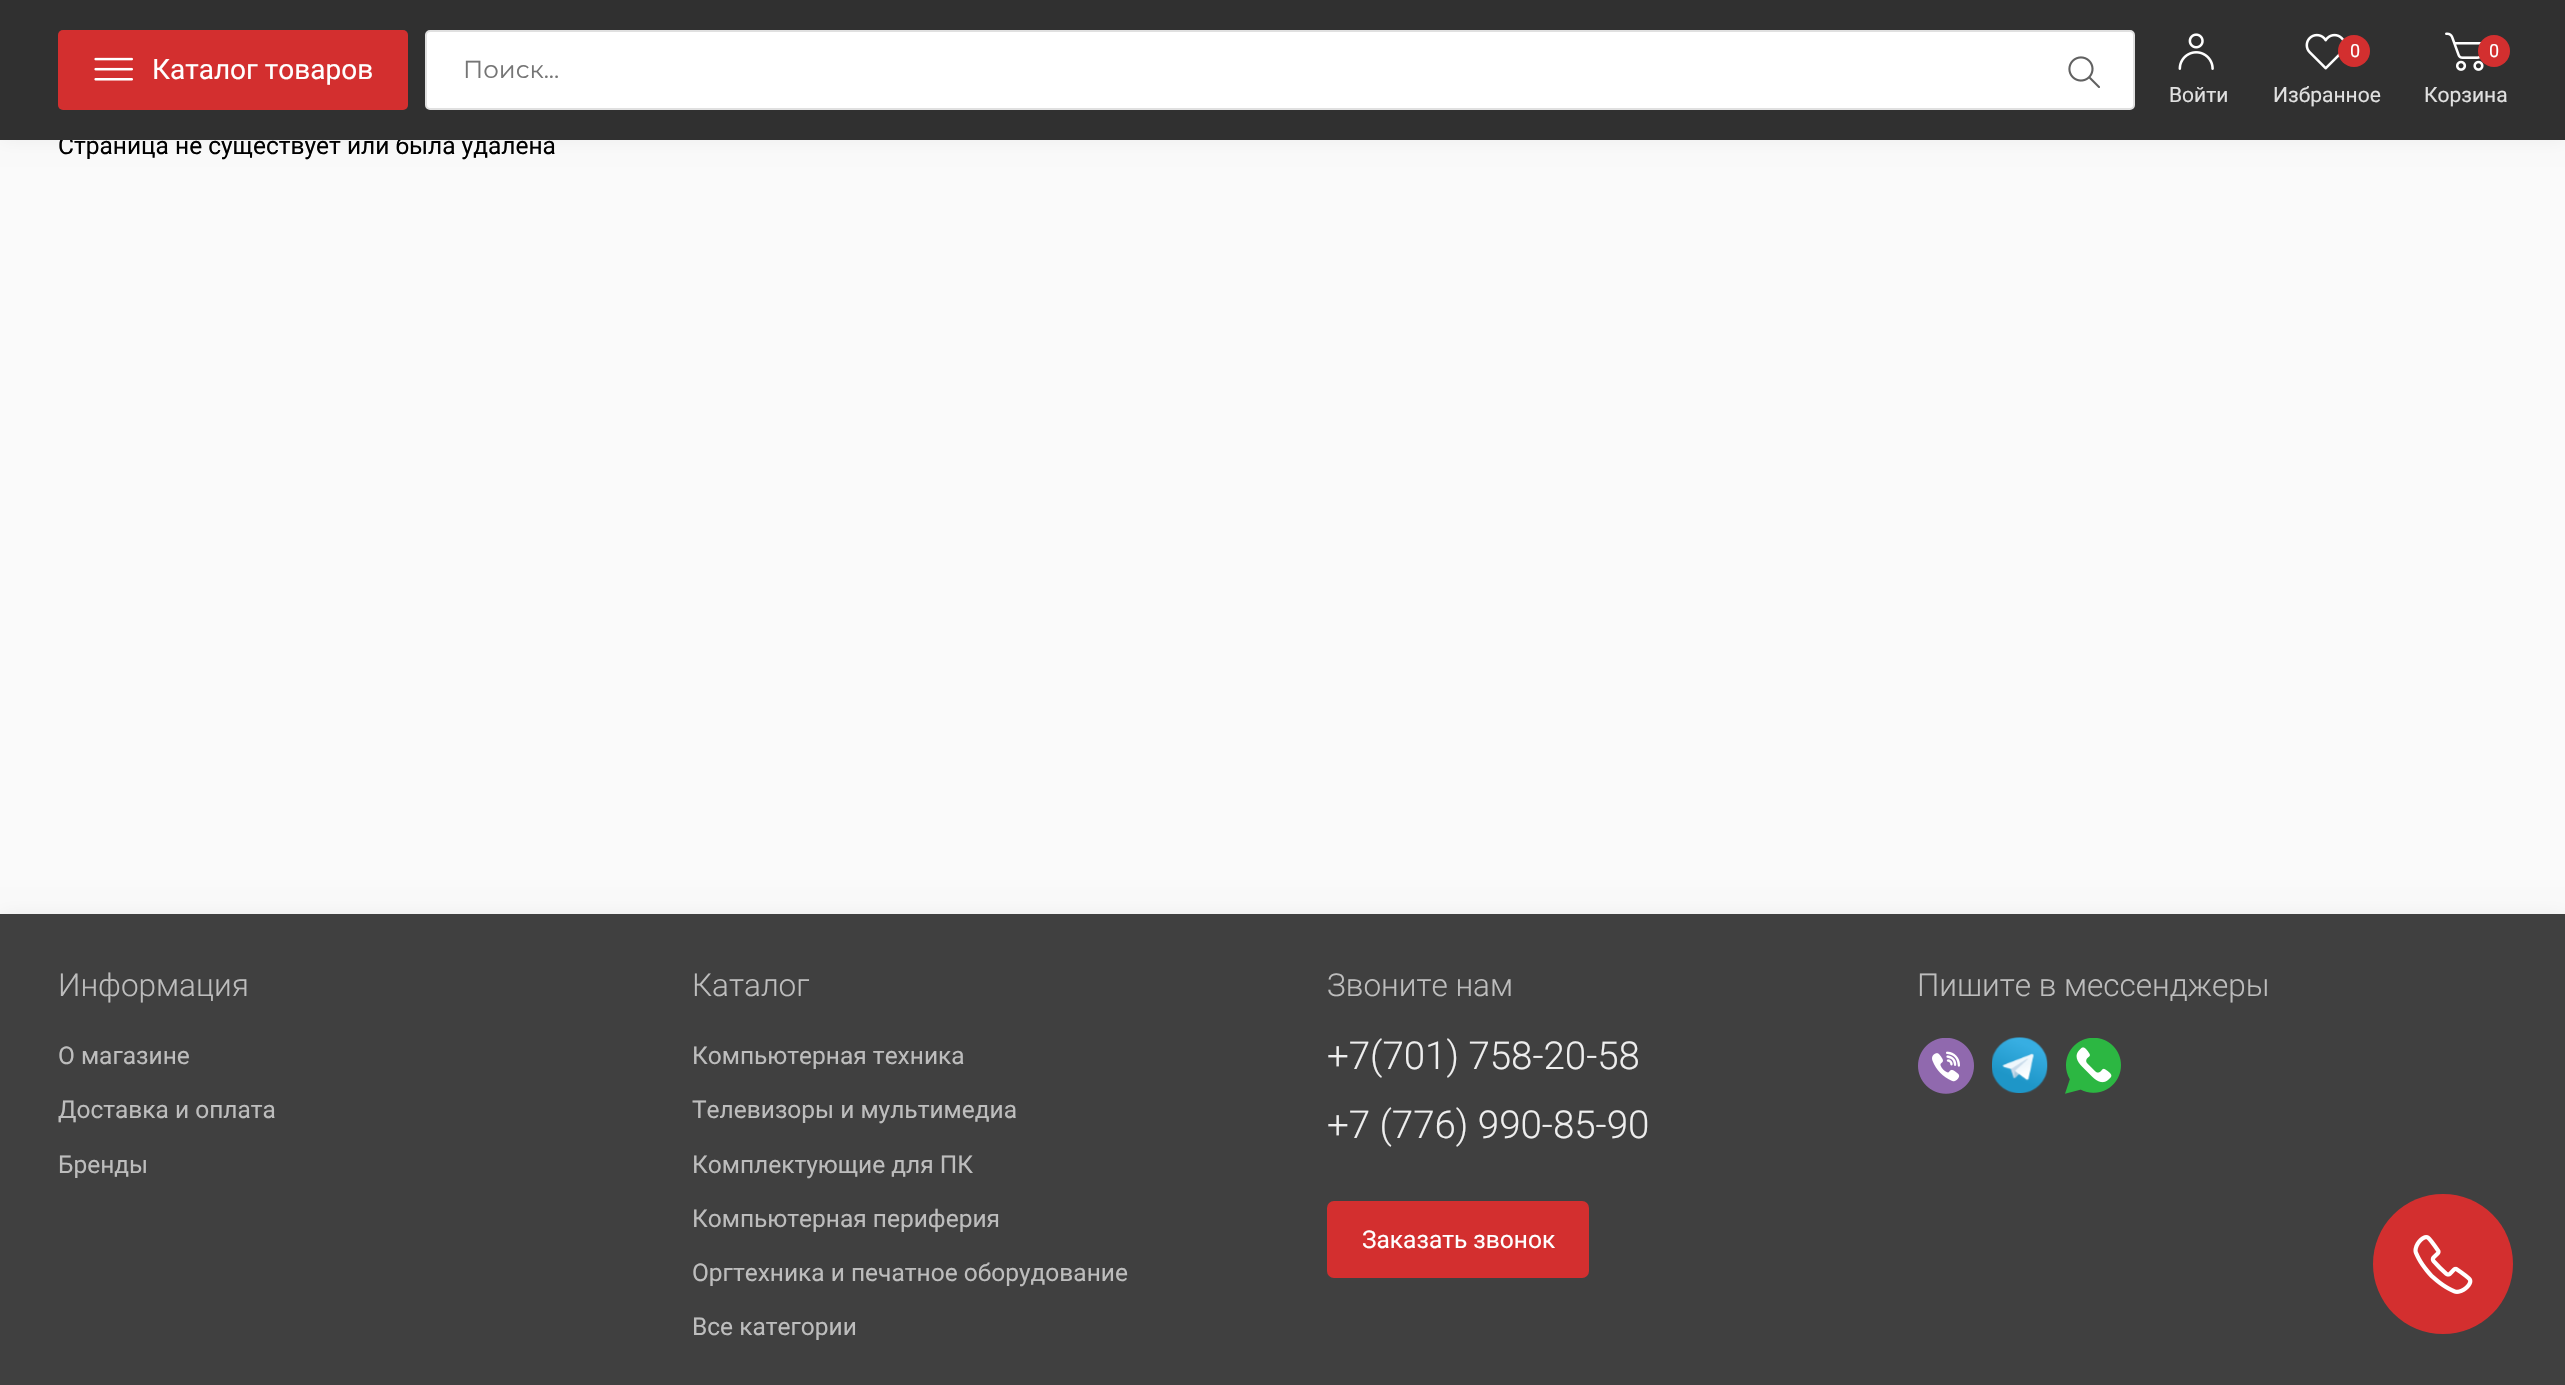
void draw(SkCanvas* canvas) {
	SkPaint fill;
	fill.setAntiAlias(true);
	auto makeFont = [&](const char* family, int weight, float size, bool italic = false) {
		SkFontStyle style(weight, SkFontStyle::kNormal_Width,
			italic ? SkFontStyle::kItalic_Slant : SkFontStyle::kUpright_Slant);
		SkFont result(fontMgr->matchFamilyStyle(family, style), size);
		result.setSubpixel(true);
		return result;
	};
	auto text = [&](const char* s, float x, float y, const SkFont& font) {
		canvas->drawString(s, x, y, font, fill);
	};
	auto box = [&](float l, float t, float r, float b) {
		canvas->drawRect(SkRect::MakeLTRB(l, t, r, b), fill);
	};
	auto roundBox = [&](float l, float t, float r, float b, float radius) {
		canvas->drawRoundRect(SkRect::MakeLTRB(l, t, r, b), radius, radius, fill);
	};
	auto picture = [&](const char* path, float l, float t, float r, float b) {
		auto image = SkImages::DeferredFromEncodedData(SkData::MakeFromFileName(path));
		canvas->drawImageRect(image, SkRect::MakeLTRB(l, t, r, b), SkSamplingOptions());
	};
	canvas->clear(0xFFFAFAFA);
	fill.setColor(0x0D000000);
	fill.setMaskFilter(SkMaskFilter::MakeBlur(kNormal_SkBlurStyle, 9));
	canvas->drawRect(SkRect::MakeLTRB(0, -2, 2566, 140), fill);
	fill.setMaskFilter(nullptr);
	fill.setMaskFilter(SkMaskFilter::MakeBlur(kNormal_SkBlurStyle, 9));
	canvas->drawRect(SkRect::MakeLTRB(0, 914, 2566, 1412), fill);
	fill.setMaskFilter(nullptr);
	fill.setColor(0xFF404040);
	box(0, 914, 2565, 1385);
	fill.setColor(0xFFD32F2F);
	roundBox(1327, 1201, 1589, 1278, 7);
	picture("image5.png", 1918, 1038, 1974, 1094);
	picture("image6.png", 1992, 1037, 2048, 1093);
	picture("image7.png", 2065, 1038, 2121, 1094);
	canvas->drawCircle(2443, 1264, 70, fill);
	picture("image8.png", 2413, 1235, 2473, 1294);
	auto font1 = makeFont("Roboto", 400, 24.5f);
	fill.setColor(0xFF000000);
	text("Страница не существует или была удалена", 58, 154, font1);
	fill.setColor(0xFF303030);
	box(0, 0, 2565, 140);
	fill.setColor(0xFFD32F2F);
	roundBox(58, 30, 408, 110, 5);
	auto font2 = makeFont("Roboto", 400, 28);
	fill.setColor(0xFFFFFFFF);
	text("Каталог товаров", 152, 79, font2);
	picture("image0.png", 94, 57, 133, 81);
	canvas->drawRoundRect(SkRect::MakeLTRB(426, 31, 2134, 109), 4, 4, fill);
	fill.setStyle(SkPaint::kStroke_Style);
	fill.setStrokeWidth(2);
	fill.setColor(0xFFE0E0E0);
	canvas->drawRoundRect(SkRect::MakeLTRB(426, 31, 2134, 109), 4, 4, fill);
	picture("image1.png", 2068, 56, 2100, 88);
	picture("image3.png", 2445, 32, 2484, 71);
	fill.setStyle(SkPaint::kFill_Style);
	fill.setColor(0xFFD32F2F);
	canvas->drawCircle(2494, 51, 16, fill);
	auto font3 = makeFont("Roboto", 400, 18);
	fill.setColor(0xFFFFFFFF);
	text("0", 2489, 57, font3);
	picture("image2.png", 2305, 33, 2344, 70);
	fill.setColor(0xFFD32F2F);
	canvas->drawCircle(2354, 51, 16, fill);
	fill.setColor(0xFFFFFFFF);
	text("0", 2350, 57, font3);
	picture("image4.png", 2178, 33, 2214, 70);
	auto font4 = makeFont("Roboto", 400, 21);
	fill.setColor(0xFFE0E0E0);
	text("Войти", 2169, 102, font4);
	auto font5 = makeFont("Montserrat", 400, 24.5f);
	fill.setColor(0xFF757575);
	text("Поиск...", 463, 78, font5);
	fill.setColor(0xFFE0E0E0);
	text("Корзина", 2424, 102, font4);
	text("Избранное", 2273, 102, font4);
	auto font6 = makeFont("Roboto", 300, 31.5f);
	fill.setColor(0xFFBDBDBD);
	text("Информация", 58, 996, font6);
	text("О магазине", 58, 1064, font1);
	text("Доставка и оплата", 58, 1118, font1);
	text("Бренды", 58, 1173, font1);
	text("Каталог", 692, 996, font6);
	text("Компьютерная техника", 692, 1064, font1);
	text("Телевизоры и мультимедиа", 692, 1118, font1);
	text("Комплектующие для ПК", 692, 1173, font1);
	text("Компьютерная периферия", 692, 1227, font1);
	text("Оргтехника и печатное оборудование", 692, 1281, font1);
	text("Все категории", 692, 1335, font1);
	text("Звоните нам", 1327, 996, font6);
	auto font7 = makeFont("Roboto", 300, 38.5f);
	fill.setColor(0xFFEEEEEE);
	text("+7(701) 758-20-58", 1327, 1069, font7);
	text("+7 (776) 990-85-90", 1327, 1138, font7);
	fill.setColor(0xFFFFFFFF);
	text("Заказать звонок", 1362, 1248, font1);
	fill.setColor(0xFFBDBDBD);
	text("Пишите в мессенджеры", 1917, 996, font6);
}
